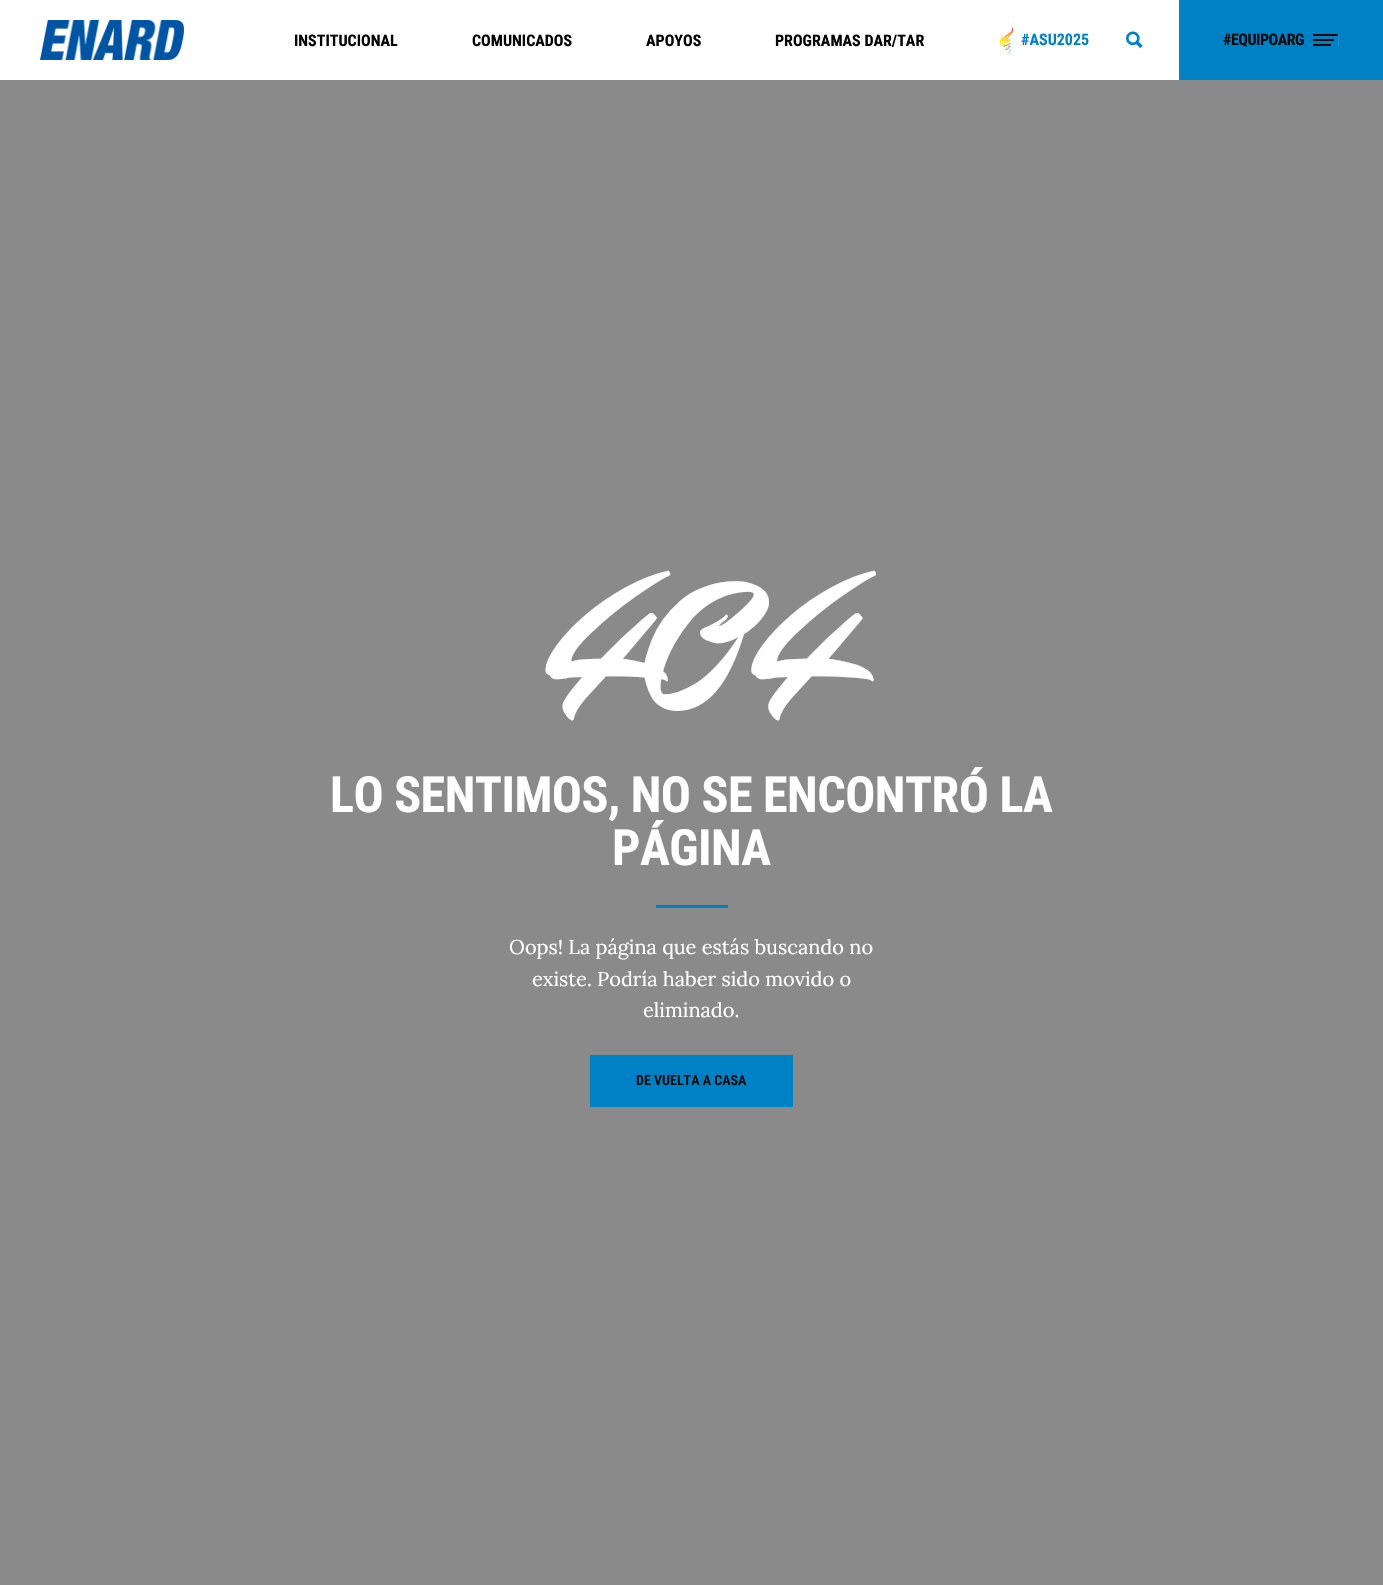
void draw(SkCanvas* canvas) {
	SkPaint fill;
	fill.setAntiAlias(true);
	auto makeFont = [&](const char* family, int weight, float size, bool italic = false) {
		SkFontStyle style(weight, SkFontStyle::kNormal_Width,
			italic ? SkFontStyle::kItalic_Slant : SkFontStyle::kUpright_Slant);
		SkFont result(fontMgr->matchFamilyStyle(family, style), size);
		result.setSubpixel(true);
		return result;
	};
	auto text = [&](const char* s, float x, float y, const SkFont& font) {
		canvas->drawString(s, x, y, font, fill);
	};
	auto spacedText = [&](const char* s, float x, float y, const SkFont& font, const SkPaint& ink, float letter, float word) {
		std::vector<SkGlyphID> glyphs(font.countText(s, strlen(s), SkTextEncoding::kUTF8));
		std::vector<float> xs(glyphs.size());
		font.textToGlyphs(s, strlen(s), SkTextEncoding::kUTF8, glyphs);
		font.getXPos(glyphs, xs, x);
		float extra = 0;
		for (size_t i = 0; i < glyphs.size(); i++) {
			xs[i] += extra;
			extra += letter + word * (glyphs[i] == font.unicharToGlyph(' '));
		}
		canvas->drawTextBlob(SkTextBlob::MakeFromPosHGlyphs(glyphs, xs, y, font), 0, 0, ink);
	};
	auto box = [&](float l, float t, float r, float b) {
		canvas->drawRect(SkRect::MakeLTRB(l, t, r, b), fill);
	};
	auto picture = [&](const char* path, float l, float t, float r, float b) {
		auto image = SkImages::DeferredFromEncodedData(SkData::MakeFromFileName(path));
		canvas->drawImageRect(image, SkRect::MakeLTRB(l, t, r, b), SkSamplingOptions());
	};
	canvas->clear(0xFFFFFFFF);
	picture("image0.png", 40, 20, 184, 60);
	picture("image1.png", 999, 26, 1014, 54);
	picture("image2.png", 1126, 31, 1143, 48);
	fill.setColor(0xFF0081C6);
	box(1179, 0, 1383, 80);
	fill.setColor(0xFF1A8ECC);
	box(1338, 34, 1339, 46);
	fill.setColor(0xFF0A0A0A);
	box(1313, 34, 1338, 36);
	box(1313, 39, 1334, 41);
	box(1313, 44, 1331, 46);
	fill.setColor(0xFF8A8A8A);
	box(0, 80, 1383, 1585);
	fill.setColor(0xFF0081C6);
	box(656, 905, 728, 908);
	box(590, 1055, 793, 1107);
	auto font1 = makeFont("Roboto Condensed", 700, 16);
	fill.setColor(0xFF000000);
	text("INSTITUCIONAL", 294, 46, font1);
	text("COMUNICADOS", 472, 46, font1);
	text("APOYOS", 646, 46, font1);
	text("PROGRAMAS DAR/TAR", 775, 46, font1);
	fill.setColor(0xFF0081C6);
	text("#ASU2025", 1021, 45, font1);
	fill.setColor(0xFF0A0A0A);
	spacedText("#EQUIPOARG", 1223, 45, font1, fill, -0.5f, 0);
	auto font2 = makeFont("Mr Dafoe", 400, 180);
	fill.setColor(0xFFFFFFFF);
	spacedText("404", 536, 703, font2, fill, -2, 0);
	auto font3 = makeFont("Roboto Condensed", 700, 50);
	spacedText("LO SENTIMOS, NO SE ENCONTRÓ LA", 330, 812, font3, fill, -0.5f, 0);
	spacedText("PÁGINA", 612, 865, font3, fill, -0.5f, 0);
	auto font4 = makeFont("Lora", 400, 20);
	text("Oops! La página que estás buscando no", 509, 954, font4);
	text("existe. Podría haber sido movido o", 532, 986, font4);
	text("eliminado.", 643, 1017, font4);
	auto font5 = makeFont("Roboto Condensed", 600, 14);
	fill.setColor(0xFF0A0A0A);
	text("DE VUELTA A CASA", 636, 1085, font5);
}
